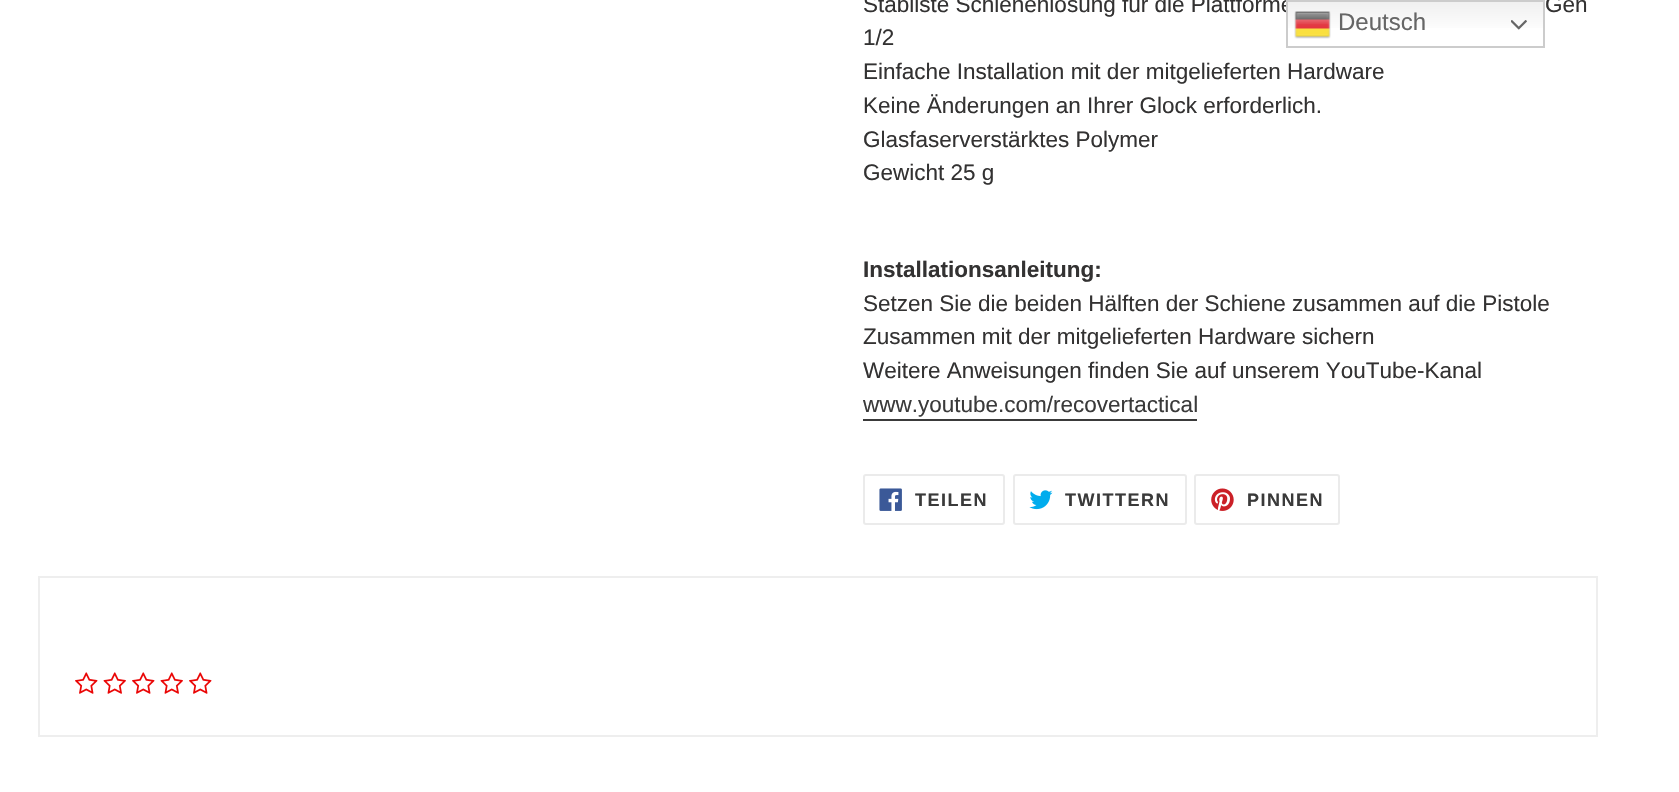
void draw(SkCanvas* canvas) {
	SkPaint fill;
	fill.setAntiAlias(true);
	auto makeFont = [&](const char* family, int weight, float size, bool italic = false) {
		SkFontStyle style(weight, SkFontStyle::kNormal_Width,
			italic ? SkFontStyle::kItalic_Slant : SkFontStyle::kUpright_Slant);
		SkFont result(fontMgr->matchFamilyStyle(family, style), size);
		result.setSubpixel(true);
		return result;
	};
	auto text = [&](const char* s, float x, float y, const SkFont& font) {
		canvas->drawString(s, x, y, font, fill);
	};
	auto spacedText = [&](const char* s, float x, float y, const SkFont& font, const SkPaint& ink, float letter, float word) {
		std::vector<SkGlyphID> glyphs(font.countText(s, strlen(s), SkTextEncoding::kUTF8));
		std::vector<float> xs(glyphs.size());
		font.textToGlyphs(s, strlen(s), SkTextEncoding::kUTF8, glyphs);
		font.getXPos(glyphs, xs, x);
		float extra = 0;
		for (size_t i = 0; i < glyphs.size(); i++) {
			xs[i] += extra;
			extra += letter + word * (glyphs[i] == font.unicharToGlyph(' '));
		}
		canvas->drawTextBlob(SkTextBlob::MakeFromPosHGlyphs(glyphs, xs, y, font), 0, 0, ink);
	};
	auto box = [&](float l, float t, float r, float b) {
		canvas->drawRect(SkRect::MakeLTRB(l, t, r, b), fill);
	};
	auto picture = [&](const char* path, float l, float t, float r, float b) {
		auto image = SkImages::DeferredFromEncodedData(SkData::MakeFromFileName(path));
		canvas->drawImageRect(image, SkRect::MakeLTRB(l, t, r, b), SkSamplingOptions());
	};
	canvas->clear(0xFFFFFFFF);
	fill.setColor(0xFF3A3A3A);
	box(863, 419, 1197, 421);
	fill.setStyle(SkPaint::kStroke_Style);
	fill.setStrokeWidth(2);
	fill.setColor(0xFFEBEBEB);
	canvas->drawRoundRect(SkRect::MakeLTRB(864, 475, 1004, 524), 2, 2, fill);
	picture("image0.png", 879, 488, 902, 511);
	canvas->drawRoundRect(SkRect::MakeLTRB(1014, 475, 1186, 524), 2, 2, fill);
	picture("image1.png", 1029, 490, 1053, 510);
	canvas->drawRoundRect(SkRect::MakeLTRB(1195, 475, 1339, 524), 2, 2, fill);
	picture("image2.png", 1211, 488, 1234, 511);
	fill.setColor(0xFFEEEEEE);
	canvas->drawRect(SkRect::MakeLTRB(39, 577, 1597, 736), fill);
	picture("image3.png", 75, 672, 98, 694);
	picture("image4.png", 103, 672, 126, 694);
	picture("image3.png", 132, 672, 155, 694);
	picture("image4.png", 160, 672, 183, 694);
	picture("image3.png", 189, 672, 212, 694);
	auto font1 = makeFont("Liberation Sans", 400, 22.5f);
	fill.setStyle(SkPaint::kFill_Style);
	fill.setColor(0xFF333232);
	text("Stabilste Schienenlösung für die Plattforme", 863, 12, font1);
	text("Gen", 1545, 12, font1);
	text("1/2", 863, 45, font1);
	text("Einfache Installation mit der mitgelieferten Hardware", 863, 79, font1);
	text("Keine Änderungen an Ihrer Glock erforderlich.", 863, 113, font1);
	text("Glasfaserverstärktes Polymer", 863, 147, font1);
	text("Gewicht 25 g", 863, 180, font1);
	auto font2 = makeFont("Liberation Sans", 700, 22.5f);
	text("Installationsanleitung:", 863, 277, font2);
	text("Setzen Sie die beiden Hälften der Schiene zusammen auf die Pistole", 863, 311, font1);
	text("Zusammen mit der mitgelieferten Hardware sichern", 863, 344, font1);
	text("Weitere Anweisungen finden Sie auf unserem YouTube-Kanal", 863, 378, font1);
	fill.setColor(0xFF3A3A3A);
	text("www.youtube.com/recovertactical", 863, 412, font1);
	auto font3 = makeFont("Liberation Sans", 700, 18);
	spacedText("TEILEN", 915, 506, font3, fill, 1.5f, 0);
	spacedText("TWITTERN", 1065, 506, font3, fill, 1.5f, 0);
	spacedText("PINNEN", 1247, 506, font3, fill, 1.5f, 0);
	{
		const SkColor colors[] = {0xFFEFEFEF, 0xFFFFFFFF};
		const float stops[] = {0, 0.7f};
		const SkPoint ends[] = {{1415, 0}, {1415, 48}};
		fill.setShader(SkGradientShader::MakeLinear(ends, colors, stops, 2, SkTileMode::kClamp));
		fill.setAlpha(255);
	}
	box(1288, 2, 1543, 28);
	fill.setStyle(SkPaint::kStroke_Style);
	fill.setShader(nullptr);
	fill.setColor(0xFFCCCCCC);
	canvas->drawRect(SkRect::MakeLTRB(1287, 1, 1544, 47), fill);
	picture("image5.png", 1294, 11, 1331, 39);
	auto font4 = makeFont("Liberation Sans", 400, 24);
	fill.setStyle(SkPaint::kFill_Style);
	fill.setColor(0xFF666666);
	text("Deutsch", 1338, 30, font4);
	picture("image6.png", 1511, 20, 1527, 30);
}
